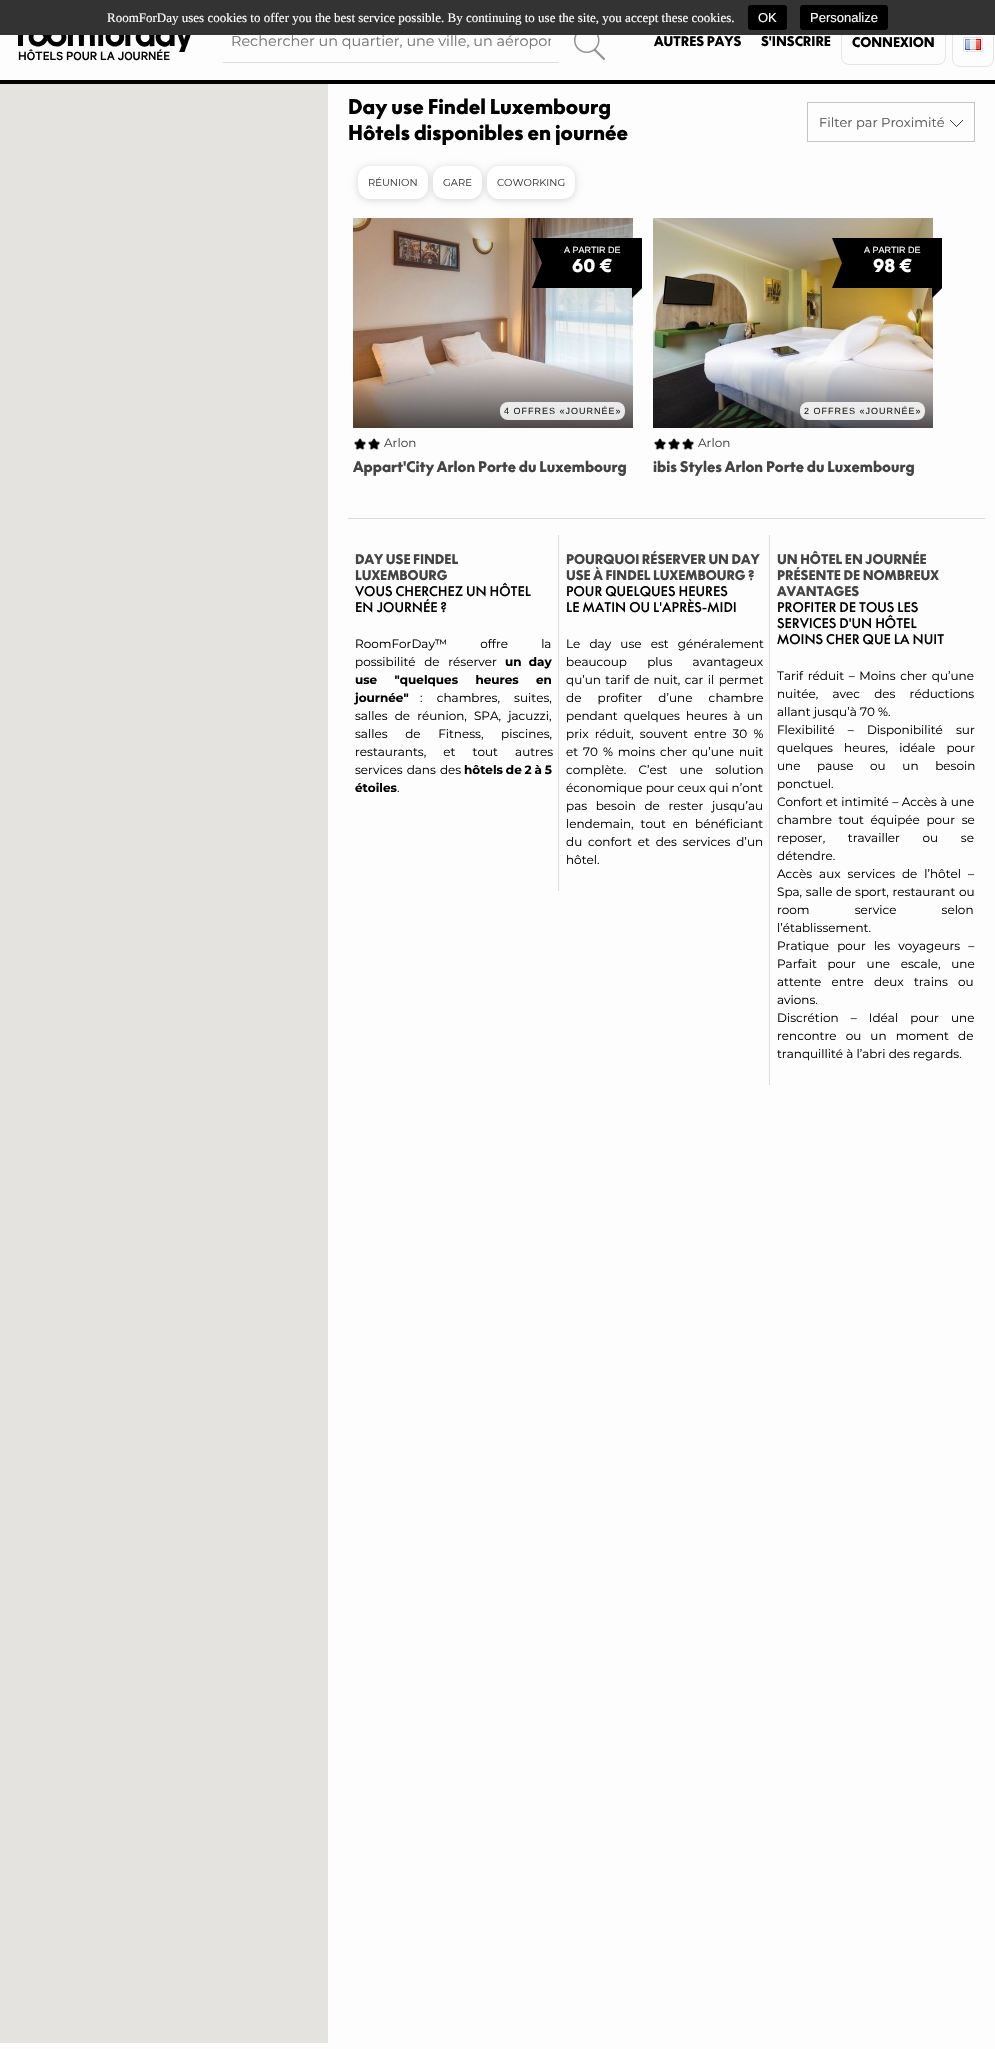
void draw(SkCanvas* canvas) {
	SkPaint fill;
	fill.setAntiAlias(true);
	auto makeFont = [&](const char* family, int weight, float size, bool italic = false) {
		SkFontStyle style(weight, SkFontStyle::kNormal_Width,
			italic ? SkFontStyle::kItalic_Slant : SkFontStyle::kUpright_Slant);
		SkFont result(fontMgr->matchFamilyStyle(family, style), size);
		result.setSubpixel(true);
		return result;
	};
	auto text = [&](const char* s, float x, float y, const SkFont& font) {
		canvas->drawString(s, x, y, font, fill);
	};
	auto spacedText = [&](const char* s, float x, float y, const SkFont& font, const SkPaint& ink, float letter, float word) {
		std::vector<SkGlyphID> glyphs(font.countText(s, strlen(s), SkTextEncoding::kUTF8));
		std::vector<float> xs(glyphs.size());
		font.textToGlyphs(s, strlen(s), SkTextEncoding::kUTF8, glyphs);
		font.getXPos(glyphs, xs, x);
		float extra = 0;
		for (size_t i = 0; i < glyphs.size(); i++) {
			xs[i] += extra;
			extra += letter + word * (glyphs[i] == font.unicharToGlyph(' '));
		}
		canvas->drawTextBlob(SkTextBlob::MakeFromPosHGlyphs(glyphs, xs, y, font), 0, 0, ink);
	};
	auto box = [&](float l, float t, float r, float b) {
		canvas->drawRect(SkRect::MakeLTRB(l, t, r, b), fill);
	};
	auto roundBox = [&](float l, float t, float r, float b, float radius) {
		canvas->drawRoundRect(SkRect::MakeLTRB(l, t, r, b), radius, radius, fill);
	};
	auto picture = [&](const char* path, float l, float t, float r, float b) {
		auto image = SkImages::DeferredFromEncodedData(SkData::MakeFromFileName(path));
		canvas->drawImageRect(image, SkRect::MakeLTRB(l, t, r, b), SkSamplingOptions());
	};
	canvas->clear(0xFFFDFDFD);
	fill.setStyle(SkPaint::kStroke_Style);
	fill.setStrokeWidth(1);
	fill.setColor(0xFFE6E5E5);
	canvas->drawRoundRect(SkRect::MakeLTRB(841.5f, 20.5f, 945.5f, 64.5f), 7.5f, 7.5f, fill);
	canvas->drawRoundRect(SkRect::MakeLTRB(952.5f, 20.5f, 993.5f, 66.5f), 7.5f, 7.5f, fill);
	fill.setStyle(SkPaint::kFill_Style);
	fill.setColor(0xFF333333);
	box(0, 0, 995, 35);
	fill.setColor(0xFF000000);
	roundBox(748, 5, 787, 30, 3);
	roundBox(800, 5, 888, 30, 3);
	fill.setColor(0xFFDDDDDD);
	box(223, 62, 559, 63);
	picture("image0.png", 574, 35, 605, 60);
	fill.setStyle(SkPaint::kStroke_Style);
	fill.setColor(0xFFE4E4E4);
	canvas->drawRoundRect(SkRect::MakeLTRB(963.5f, 37.5f, 982.5f, 51.5f), 1.5f, 1.5f, fill);
	picture("image1.png", 965, 39, 981, 50);
	picture("image2.png", 18, 35, 191, 52);
	fill.setStyle(SkPaint::kFill_Style);
	fill.setColor(0xFF000000);
	box(0, 80, 995, 84);
	fill.setColor(0xFFE5E3DF);
	box(0, 84, 328, 2043);
	fill.setStyle(SkPaint::kStroke_Style);
	fill.setColor(0xFFC4C4C4);
	canvas->drawRect(SkRect::MakeLTRB(807.5f, 102.5f, 974.5f, 141.5f), fill);
	picture("image3.png", 950, 120, 963, 127);
	fill.setStyle(SkPaint::kFill_Style);
	fill.setColor(0x29000000);
	fill.setMaskFilter(SkMaskFilter::MakeBlur(kNormal_SkBlurStyle, 3.5f));
	canvas->drawRoundRect(SkRect::MakeLTRB(358, 167, 428, 200), 12, 12, fill);
	fill.setMaskFilter(nullptr);
	fill.setColor(0xFFFFFFFF);
	roundBox(358, 166, 428, 199, 12);
	fill.setColor(0x29000000);
	fill.setMaskFilter(SkMaskFilter::MakeBlur(kNormal_SkBlurStyle, 3.5f));
	canvas->drawRoundRect(SkRect::MakeLTRB(433, 167, 482, 200), 12, 12, fill);
	fill.setMaskFilter(nullptr);
	fill.setColor(0xFFFFFFFF);
	roundBox(433, 166, 482, 199, 12);
	fill.setColor(0x29000000);
	fill.setMaskFilter(SkMaskFilter::MakeBlur(kNormal_SkBlurStyle, 3.5f));
	canvas->drawRoundRect(SkRect::MakeLTRB(487, 167, 575, 200), 12, 12, fill);
	fill.setMaskFilter(nullptr);
	fill.setColor(0xFFFFFFFF);
	roundBox(487, 166, 575, 199, 12);
	picture("image4.png", 353, 218, 633, 428);
	fill.setColor(0xFF000000);
	canvas->drawPath(SkPathBuilder().moveTo(532, 238).lineTo(642, 238).lineTo(642, 288).lineTo(632, 298).lineTo(632, 288).lineTo(532, 288).lineTo(542, 263).close().detach(), fill);
	fill.setColor(0x54000000);
	canvas->drawPath(SkPathBuilder().moveTo(642, 288.5f).lineTo(632.5f, 298).lineTo(632.5f, 288).lineTo(642, 288).close().detach(), fill);
	fill.setColor(0xD9FFFFFF);
	roundBox(500, 402, 625, 420, 8);
	picture("image5.png", 354, 438, 367, 450);
	picture("image6.png", 368, 438, 381, 450);
	picture("image7.png", 653, 218, 933, 428);
	fill.setColor(0xFF000000);
	canvas->drawPath(SkPathBuilder().moveTo(832, 238).lineTo(942, 238).lineTo(942, 288).lineTo(932, 298).lineTo(932, 288).lineTo(832, 288).lineTo(842, 263).close().detach(), fill);
	fill.setColor(0x54000000);
	canvas->drawPath(SkPathBuilder().moveTo(942, 288.5f).lineTo(932.5f, 298).lineTo(932.5f, 288).lineTo(942, 288).close().detach(), fill);
	fill.setColor(0xD9FFFFFF);
	roundBox(800, 402, 925, 420, 8);
	picture("image6.png", 654, 438, 667, 450);
	picture("image6.png", 668, 438, 681, 450);
	picture("image6.png", 682, 438, 695, 450);
	fill.setColor(0xFFDBDBDB);
	box(348, 518, 985, 519);
	fill.setColor(0xFFDDDDDD);
	box(558, 535, 559, 891);
	box(769, 535, 770, 1085);
	auto font1 = makeFont("Liberation Serif", 400, 13);
	fill.setColor(0xFFFFFFFF);
	text("RoomForDay uses cookies to offer you the best service possible. By continuing to use the site, you accept these cookies.", 107, 22, font1);
	auto font2 = makeFont("Liberation Sans", 400, 13);
	text("OK", 758, 22, font2);
	text("Personalize", 810, 22, font2);
	canvas->save();
	canvas->clipRect(SkRect::MakeLTRB(231, 32, 551, 50));
	auto font3 = makeFont("Montserrat", 400, 14.4f);
	fill.setColor(0xFF757575);
	text("Rechercher un quartier, une ville, un aéropor", 231, 46, font3);
	canvas->restore();
	auto font4 = makeFont("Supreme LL", 900, 13);
	fill.setColor(0xFF000000);
	text("AUTRES PAYS", 654, 46, font4);
	text("S'INSCRIRE", 761, 46, font4);
	text("CONNEXION", 852, 47, font4);
	auto font5 = makeFont("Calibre", 500, 13.25f);
	text("HÔTELS POUR LA JOURNÉE", 18, 60, font5);
	auto font6 = makeFont("Supreme LL", 900, 20);
	text("Day use Findel Luxembourg", 348, 114, font6);
	text("Hôtels disponibles en journée", 348, 140, font6);
	auto font7 = makeFont("Montserrat", 400, 13);
	fill.setColor(0xFF565A5C);
	text("Filter par Proximité", 819, 127, font7);
	auto font8 = makeFont("Montserrat", 400, 10);
	fill.setColor(0xFF393C3D);
	text("RÉUNION", 368, 186, font8);
	text("GARE", 443, 186, font8);
	text("COWORKING", 497, 186, font8);
	auto font9 = makeFont("Liberation Sans", 400, 9);
	fill.setColor(0xFFFFFFFF);
	text("A PARTIR DE", 564, 253, font9);
	auto font10 = makeFont("Supreme LL", 900, 18);
	text("60 €", 572, 272, font10);
	fill.setColor(0xFF222222);
	spacedText("4 OFFRES «JOURNÉE»", 504, 414, font9, fill, 1, 0);
	auto font11 = makeFont("Montserrat", 400, 12);
	fill.setColor(0xFF444444);
	text("Arlon", 384, 447, font11);
	auto font12 = makeFont("Supreme LL", 900, 14.4f);
	text("Appart'City Arlon Porte du Luxembourg", 353, 472, font12);
	fill.setColor(0xFFFFFFFF);
	text("A PARTIR DE", 864, 253, font9);
	text("98 €", 873, 272, font10);
	fill.setColor(0xFF222222);
	spacedText("2 OFFRES «JOURNÉE»", 804, 414, font9, fill, 1, 0);
	fill.setColor(0xFF444444);
	text("Arlon", 698, 447, font11);
	text("ibis Styles Arlon Porte du Luxembourg", 653, 472, font12);
	text("DAY USE FINDEL", 355, 564, font4);
	text("LUXEMBOURG", 355, 580, font4);
	auto font13 = makeFont("Supreme LL", 500, 13);
	fill.setColor(0xFF000000);
	text("VOUS CHERCHEZ UN HÔTEL", 355, 596, font13);
	text("EN JOURNÉE ?", 355, 612, font13);
	spacedText("RoomForDay™ offre la", 355, 648, font11, fill, 0, 30);
	spacedText("possibilité de réserver", 355, 666, font11, fill, 0, 5.5f);
	auto font14 = makeFont("Montserrat", 700, 12);
	spacedText("un day", 505, 666, font14, fill, 0, 3.75f);
	spacedText("use \"quelques heures en", 355, 684, font14, fill, 0, 14);
	text("journée\"", 355, 702, font14);
	spacedText(": chambres, suites,", 420, 702, font11, fill, 0, 11);
	spacedText("salles de réunion, SPA, jacuzzi,", 355, 720, font11, fill, 0, 4);
	spacedText("salles de Fitness, piscines,", 355, 738, font11, fill, 0, 14.5f);
	spacedText("restaurants, et tout autres", 355, 756, font11, fill, 0, 14);
	spacedText("services dans des", 355, 774, font11, fill, 0, 1);
	spacedText("hôtels de 2 à 5", 464, 774, font14, fill, 0, -0.5f);
	text("étoiles", 355, 792, font14);
	text(".", 397, 792, font11);
	fill.setColor(0xFF444444);
	text("POURQUOI RÉSERVER UN DAY", 566, 564, font4);
	text("USE À FINDEL LUXEMBOURG ?", 566, 580, font4);
	fill.setColor(0xFF000000);
	text("POUR QUELQUES HEURES", 566, 596, font13);
	text("LE MATIN OU L'APRÈS-MIDI", 566, 612, font13);
	spacedText("Le day use est généralement", 566, 648, font11, fill, 0, 6);
	spacedText("beaucoup plus avantageux", 566, 666, font11, fill, 0, 17);
	spacedText("qu’un tarif de nuit, car il permet", 566, 684, font11, fill, 0, 1.25f);
	spacedText("de profiter d’une chambre", 566, 702, font11, fill, 0, 13);
	spacedText("pendant quelques heures à un", 566, 720, font11, fill, 0, 3);
	spacedText("prix réduit, souvent entre 30 %", 566, 738, font11, fill, 0, 3);
	spacedText("et 70 % moins cher qu’une nuit", 566, 756, font11, fill, 0, 1.75f);
	spacedText("complète. C’est une solution", 566, 774, font11, fill, 0, 9);
	text("économique pour ceux qui n’ont", 566, 792, font11);
	spacedText("pas besoin de rester jusqu’au", 566, 810, font11, fill, 0, 5.5f);
	spacedText("lendemain, tout en bénéficiant", 566, 828, font11, fill, 0, 3.75f);
	spacedText("du confort et des services d’un", 566, 846, font11, fill, 0, 2.75f);
	text("hôtel.", 566, 864, font11);
	fill.setColor(0xFF444444);
	text("UN HÔTEL EN JOURNÉE", 777, 564, font4);
	text("PRÉSENTE DE NOMBREUX", 777, 580, font4);
	text("AVANTAGES", 777, 596, font4);
	fill.setColor(0xFF000000);
	text("PROFITER DE TOUS LES", 777, 612, font13);
	text("SERVICES D'UN HÔTEL", 777, 628, font13);
	text("MOINS CHER QUE LA NUIT", 777, 644, font13);
	spacedText("Tarif réduit – Moins cher qu’une", 777, 680, font11, fill, 0, 1.5f);
	spacedText("nuitée, avec des réductions", 777, 698, font11, fill, 0, 11);
	text("allant jusqu’à 70 %.", 777, 716, font11);
	spacedText("Flexibilité – Disponibilité sur", 777, 734, font11, fill, 0, 10);
	spacedText("quelques heures, idéale pour", 777, 752, font11, fill, 0, 8);
	spacedText("une pause ou un besoin", 777, 770, font11, fill, 0, 13.5f);
	text("ponctuel.", 777, 788, font11);
	spacedText("Confort et intimité – Accès à une", 777, 806, font11, fill, 0, 0.25f);
	spacedText("chambre tout équipée pour se", 777, 824, font11, fill, 0, 3.5f);
	spacedText("reposer, travailler ou se", 777, 842, font11, fill, 0, 19.5f);
	text("détendre.", 777, 860, font11);
	spacedText("Accès aux services de l’hôtel –", 777, 878, font11, fill, 0, 3.75f);
	spacedText("Spa, salle de sport, restaurant ou", 777, 896, font11, fill, 0, 0.5f);
	spacedText("room service selon", 777, 914, font11, fill, 0, 42);
	text("l’établissement.", 777, 932, font11);
	spacedText("Pratique pour les voyageurs –", 777, 950, font11, fill, 0, 5);
	spacedText("Parfait pour une escale, une", 777, 968, font11, fill, 0, 7.5f);
	spacedText("attente entre deux trains ou", 777, 986, font11, fill, 0, 7);
	text("avions.", 777, 1004, font11);
	spacedText("Discrétion – Idéal pour une", 777, 1022, font11, fill, 0, 9);
	spacedText("rencontre ou un moment de", 777, 1040, font11, fill, 0, 6);
	text("tranquillité à l’abri des regards.", 777, 1058, font11);
}
